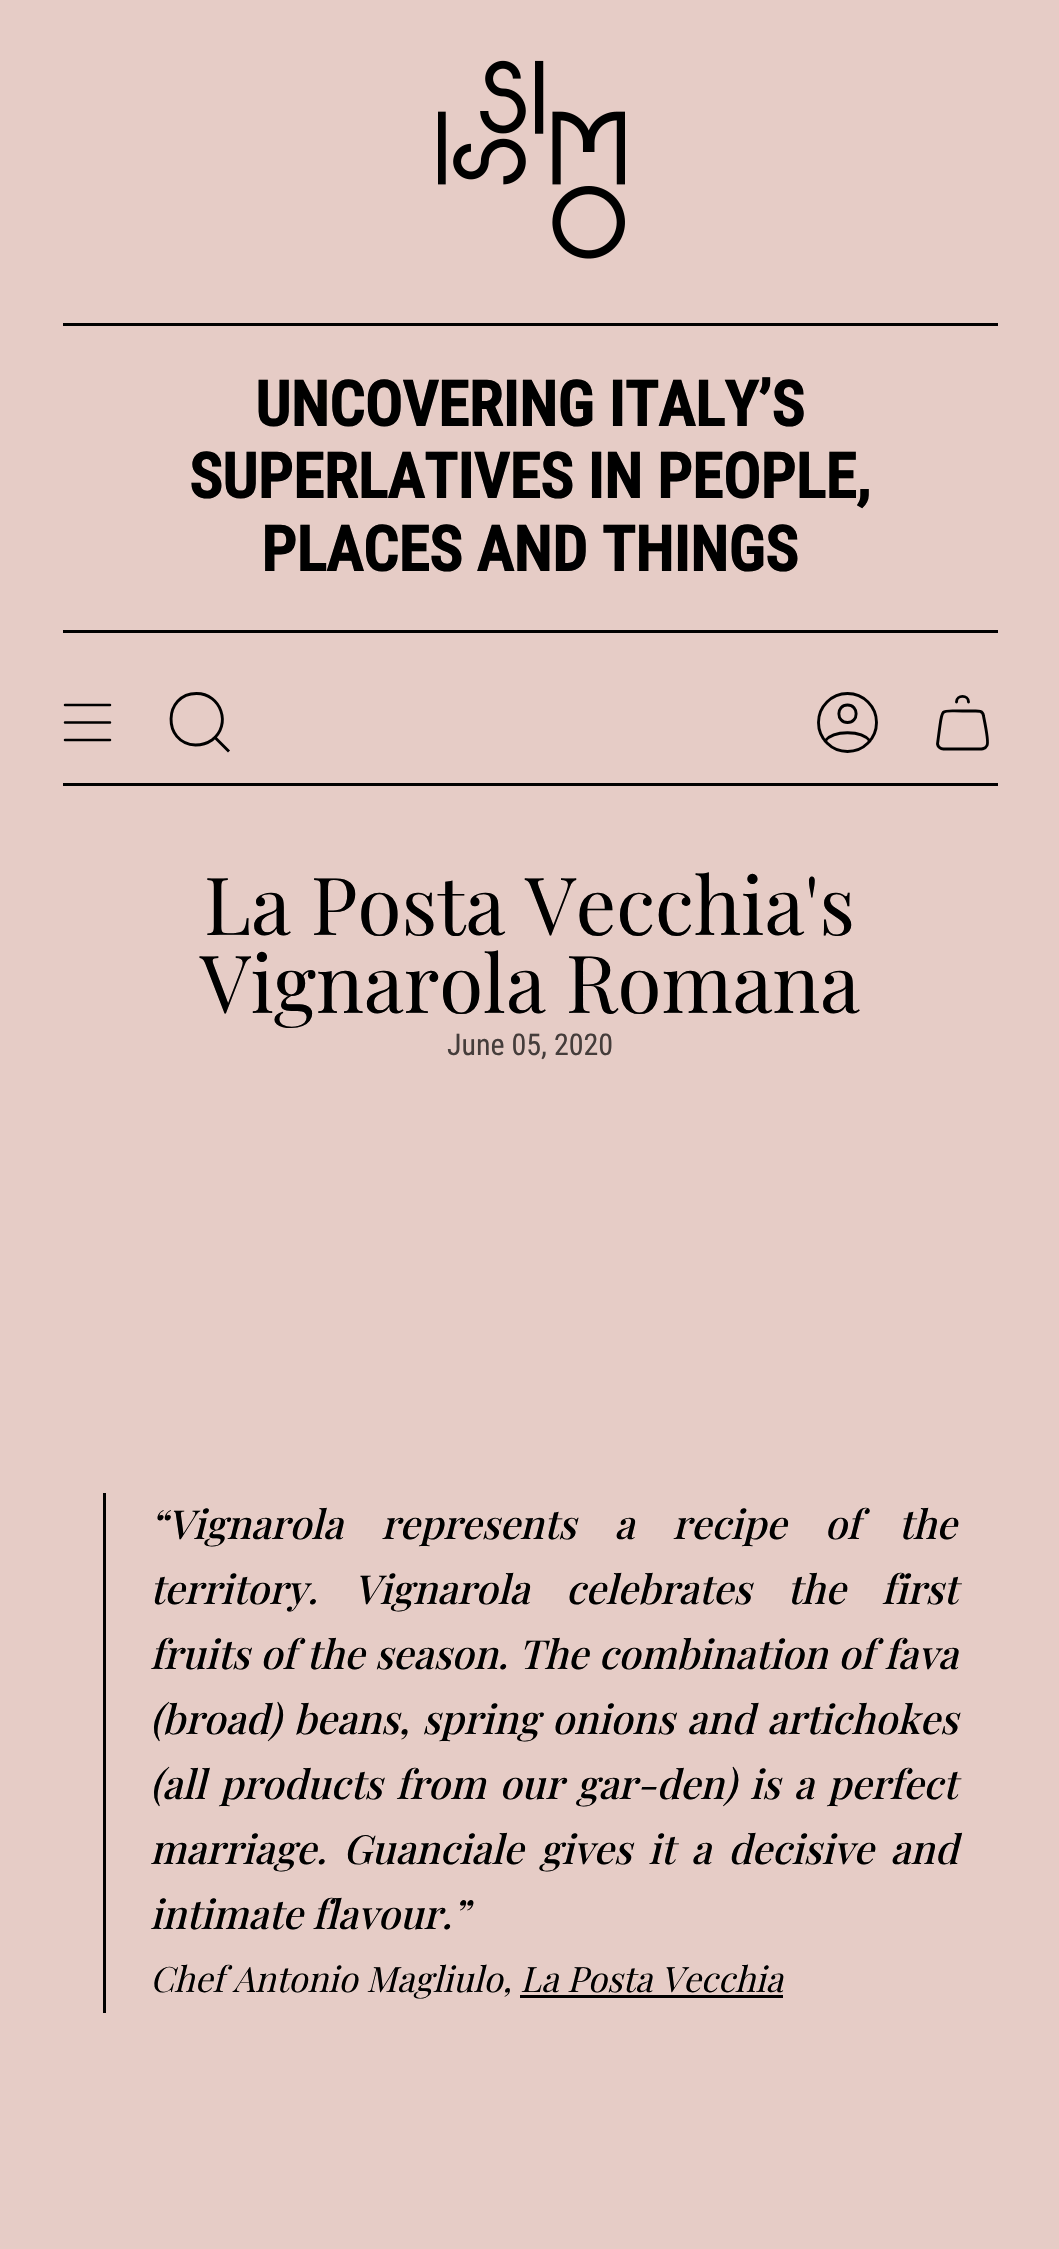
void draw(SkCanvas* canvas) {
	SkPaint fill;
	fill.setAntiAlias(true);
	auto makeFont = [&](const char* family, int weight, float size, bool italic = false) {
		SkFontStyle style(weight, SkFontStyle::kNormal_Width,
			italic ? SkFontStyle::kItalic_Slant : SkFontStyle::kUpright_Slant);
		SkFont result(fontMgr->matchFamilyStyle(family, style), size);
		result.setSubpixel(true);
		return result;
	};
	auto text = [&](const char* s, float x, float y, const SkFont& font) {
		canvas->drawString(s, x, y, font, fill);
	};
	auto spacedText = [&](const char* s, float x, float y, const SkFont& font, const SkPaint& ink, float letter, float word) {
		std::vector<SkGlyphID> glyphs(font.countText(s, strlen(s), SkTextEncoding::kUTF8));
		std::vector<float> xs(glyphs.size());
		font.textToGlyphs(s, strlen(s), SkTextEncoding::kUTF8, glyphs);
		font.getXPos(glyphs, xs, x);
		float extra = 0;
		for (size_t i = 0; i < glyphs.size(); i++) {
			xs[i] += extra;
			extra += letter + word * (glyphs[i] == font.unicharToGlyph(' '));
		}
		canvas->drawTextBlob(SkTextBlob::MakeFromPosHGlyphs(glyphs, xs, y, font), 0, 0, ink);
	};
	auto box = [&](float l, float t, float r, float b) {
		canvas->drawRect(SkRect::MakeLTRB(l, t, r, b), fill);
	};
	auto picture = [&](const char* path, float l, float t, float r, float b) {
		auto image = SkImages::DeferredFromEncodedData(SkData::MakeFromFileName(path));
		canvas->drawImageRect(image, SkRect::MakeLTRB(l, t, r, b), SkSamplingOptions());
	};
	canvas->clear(0xFFE6CCC6);
	picture("image0.png", 438, 60, 625, 259);
	fill.setColor(0xFF000000);
	box(63, 323, 998, 326);
	box(63, 630, 998, 633);
	fill.setStyle(SkPaint::kStroke_Style);
	fill.setStrokeWidth(2.5f);
	fill.setStrokeCap(SkPaint::kRound_Cap);
	fill.setStrokeJoin(SkPaint::kRound_Join);
	canvas->drawPath(SkPathBuilder().moveTo(65, 705).lineTo(110, 705).moveTo(65, 722.5f).lineTo(110, 722.5f).moveTo(65, 740).lineTo(110, 740).detach(), fill);
	fill.setStrokeWidth(2.9f);
	fill.setStrokeCap(SkPaint::kButt_Cap);
	fill.setStrokeJoin(SkPaint::kMiter_Join);
	canvas->drawPath(SkPathBuilder().moveTo(196.5f, 693.5f).cubicTo(221, 693.5f, 232, 725, 212, 740).cubicTo(207, 743.5f, 201.5f, 745, 195.5f, 745).cubicTo(162, 743.5f, 163.5f, 693.5f, 196.5f, 693.5f).close().moveTo(215, 737.5f).lineTo(229, 751.5f).detach(), fill);
	fill.setStrokeCap(SkPaint::kRound_Cap);
	fill.setStrokeJoin(SkPaint::kRound_Join);
	canvas->drawPath(SkPathBuilder().moveTo(847.5f, 693.5f).cubicTo(831.5f, 693.5f, 818.5f, 706.5f, 818.5f, 722.5f).cubicTo(818.5f, 738.5f, 831.5f, 751.5f, 847.5f, 751.5f).cubicTo(863.5f, 751.5f, 876.5f, 738.5f, 876.5f, 722.5f).cubicTo(876.5f, 706.5f, 863.5f, 693.5f, 847.5f, 693.5f).close().moveTo(825, 741).cubicTo(833.5f, 730, 861.5f, 730, 870, 741).moveTo(847.5f, 722.5f).cubicTo(859, 722.5f, 859, 705, 847.5f, 705).cubicTo(836, 705, 836, 722.5f, 847.5f, 722.5f).close().detach(), fill);
	canvas->drawPath(SkPathBuilder().moveTo(983.5f, 716).cubicTo(984.5f, 721, 989, 742, 987, 745.5f).cubicTo(985, 750, 979.5f, 749, 975.5f, 749).lineTo(949.5f, 749).cubicTo(945, 749, 938.5f, 750, 937.5f, 744).lineTo(939.5f, 729).cubicTo(942.5f, 707.5f, 940.5f, 711, 962.5f, 711).lineTo(973, 711).cubicTo(977, 711, 983, 710, 983.5f, 716).close().moveTo(968.5f, 702).cubicTo(968.5f, 694.5f, 956.5f, 694.5f, 956.5f, 702).detach(), fill);
	fill.setStyle(SkPaint::kFill_Style);
	box(63, 783, 998, 786);
	box(103, 1493, 106, 2013);
	box(520, 1995, 783, 1998);
	auto font1 = makeFont("Roboto Condensed", 700, 62.5f);
	text("UNCOVERING ITALY’S", 255, 426, font1);
	text("SUPERLATIVES IN PEOPLE,", 189, 498, font1);
	text("PLACES AND THINGS", 261, 571, font1);
	auto font2 = makeFont("Playfair Display", 400, 80);
	text("La Posta Vecchia's", 204, 935, font2);
	text("Vignarola Romana", 200, 1013, font2);
	auto font3 = makeFont("Roboto Condensed", 400, 30);
	fill.setColor(0xFF453D3B);
	text("June 05, 2020", 447, 1055, font3);
	auto font4 = makeFont("Playfair Display", 500, 40, true);
	fill.setColor(0xFF000000);
	spacedText("“Vignarola represents a recipe of the", 150, 1539, font4, fill, 0, 28.5f);
	spacedText("territory. Vignarola celebrates the first", 150, 1604, font4, fill, 0, 26.5f);
	spacedText("fruits of the season. The combination of fava", 150, 1669, font4, fill, 0, 0.75f);
	spacedText("(broad) beans, spring onions and artichokes", 150, 1734, font4, fill, 0, 2.75f);
	spacedText("(all products from our gar-den) is a perfect", 150, 1799, font4, fill, 0, 4);
	spacedText("marriage. Guanciale gives it a decisive and", 150, 1864, font4, fill, 0, 7);
	text("intimate flavour.”", 150, 1929, font4);
	auto font5 = makeFont("Playfair Display", 400, 35, true);
	text("Chef Antonio Magliulo, La Posta Vecchia", 150, 1992, font5);
}
